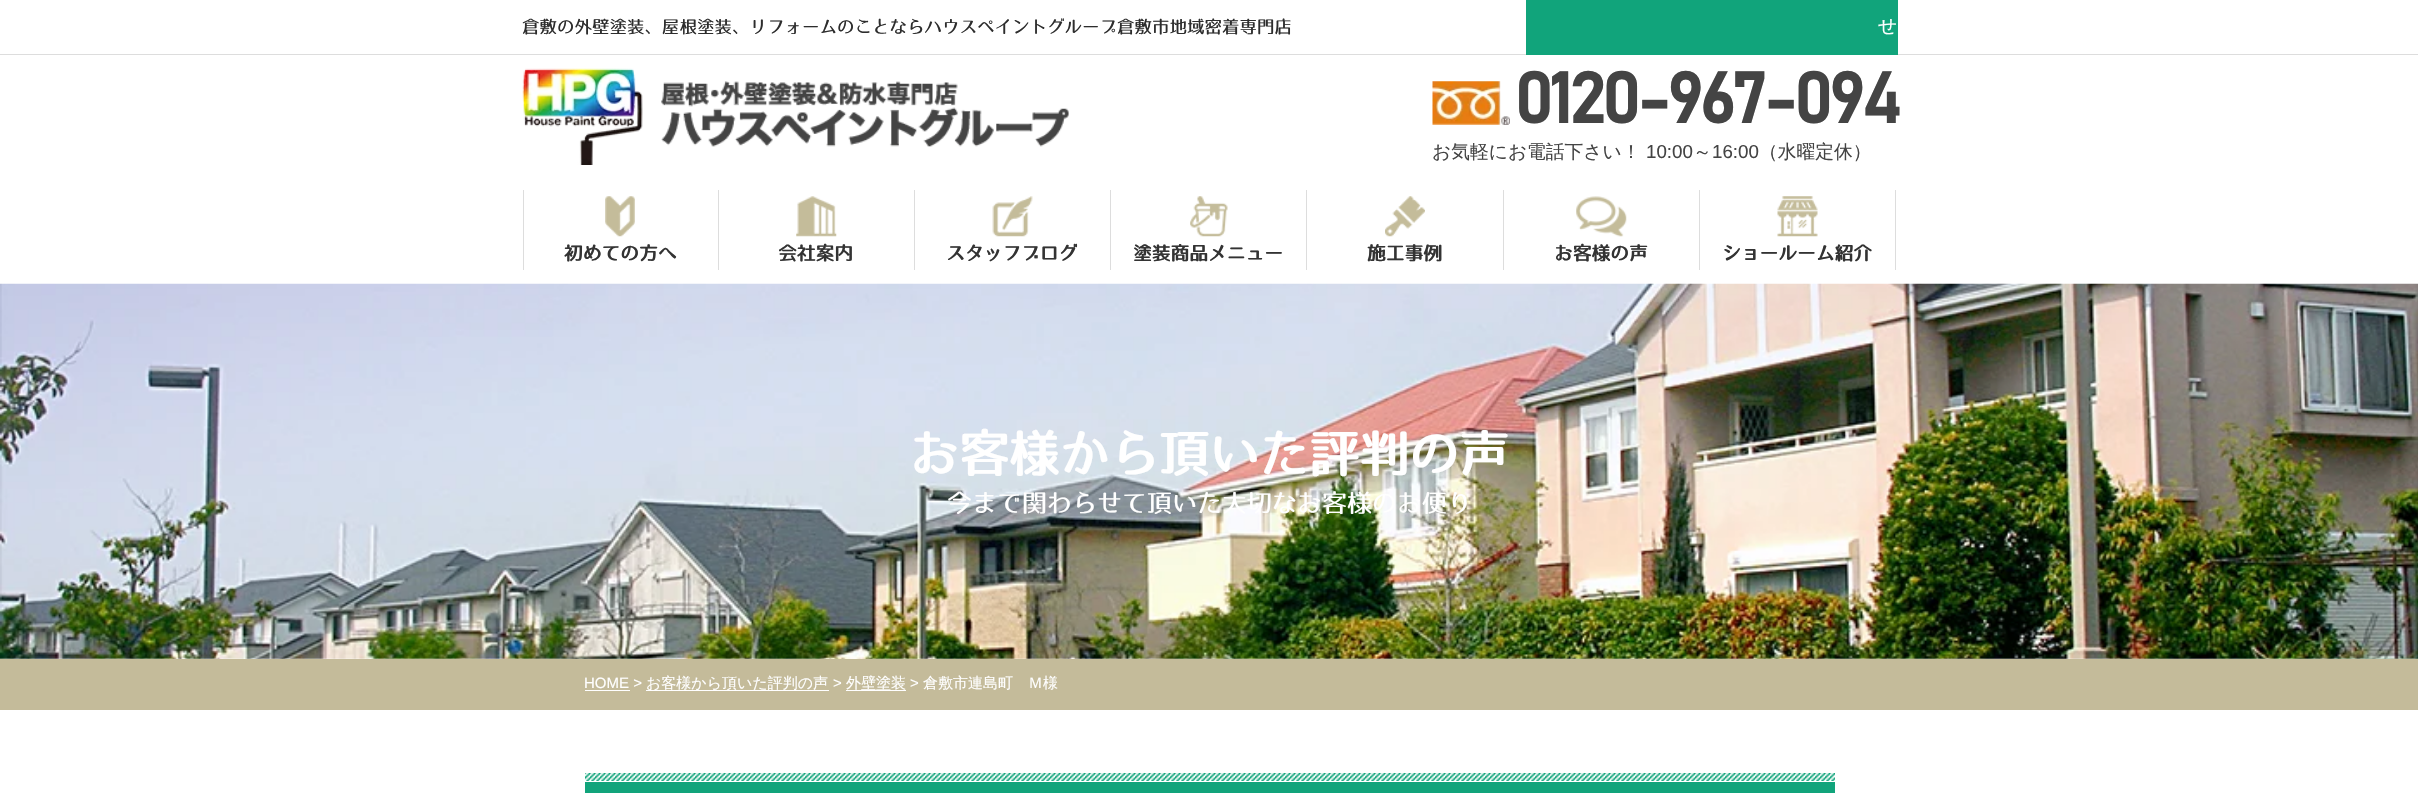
void draw(SkCanvas* canvas) {
	SkPaint fill;
	fill.setAntiAlias(true);
	auto makeFont = [&](const char* family, int weight, float size, bool italic = false) {
		SkFontStyle style(weight, SkFontStyle::kNormal_Width,
			italic ? SkFontStyle::kItalic_Slant : SkFontStyle::kUpright_Slant);
		SkFont result(fontMgr->matchFamilyStyle(family, style), size);
		result.setSubpixel(true);
		return result;
	};
	auto text = [&](const char* s, float x, float y, const SkFont& font) {
		canvas->drawString(s, x, y, font, fill);
	};
	auto spacedText = [&](const char* s, float x, float y, const SkFont& font, const SkPaint& ink, float letter, float word) {
		std::vector<SkGlyphID> glyphs(font.countText(s, strlen(s), SkTextEncoding::kUTF8));
		std::vector<float> xs(glyphs.size());
		font.textToGlyphs(s, strlen(s), SkTextEncoding::kUTF8, glyphs);
		font.getXPos(glyphs, xs, x);
		float extra = 0;
		for (size_t i = 0; i < glyphs.size(); i++) {
			xs[i] += extra;
			extra += letter + word * (glyphs[i] == font.unicharToGlyph(' '));
		}
		canvas->drawTextBlob(SkTextBlob::MakeFromPosHGlyphs(glyphs, xs, y, font), 0, 0, ink);
	};
	auto box = [&](float l, float t, float r, float b) {
		canvas->drawRect(SkRect::MakeLTRB(l, t, r, b), fill);
	};
	auto picture = [&](const char* path, float l, float t, float r, float b) {
		auto image = SkImages::DeferredFromEncodedData(SkData::MakeFromFileName(path));
		canvas->drawImageRect(image, SkRect::MakeLTRB(l, t, r, b), SkSamplingOptions());
	};
	canvas->clear(0xFFFFFFFF);
	fill.setColor(0xFFDDDDDD);
	box(0, 54, 2418, 55);
	picture("image0.png", 522, 68, 1069, 165);
	fill.setColor(0xFF11A47B);
	box(1526, 0, 1898, 55);
	picture("image1.png", 1432, 81, 1510, 125);
	fill.setColor(0xFFDDDDDD);
	box(718, 190, 719, 270);
	box(523, 190, 524, 270);
	picture("image2.png", 605, 196, 635, 237);
	box(914, 190, 915, 270);
	picture("image3.png", 796, 196, 837, 237);
	box(1110, 190, 1111, 270);
	picture("image4.png", 992, 196, 1033, 237);
	box(1306, 190, 1307, 270);
	picture("image5.png", 1190, 196, 1228, 237);
	box(1503, 190, 1504, 270);
	picture("image6.png", 1385, 196, 1425, 237);
	box(1699, 190, 1700, 270);
	picture("image7.png", 1576, 196, 1627, 237);
	box(1895, 190, 1896, 270);
	picture("image8.png", 1777, 196, 1818, 237);
	picture("image9.png", 0, 283, 2418, 659);
	fill.setColor(0xFFC4BB9A);
	box(0, 659, 2418, 710);
	fill.setColor(0xFFFFFFFF);
	box(585, 690, 630, 691);
	box(646, 690, 829, 691);
	box(846, 690, 906, 691);
	fill.setColor(0xFF11A47B);
	box(585, 773, 1835, 793);
	fill.setColor(0xFFFFFFFF);
	box(585, 781, 1835, 782);
	picture("image10.png", 585, 773, 1835, 781);
	auto font1 = makeFont("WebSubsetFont", 400, 17.5f);
	fill.setColor(0xFF2D2D2D);
	text("倉敷の外壁塗装、屋根塗装、リフォームのことならハウスペイントグループ倉敷市地域密着専門店", 522, 33, font1);
	auto font2 = makeFont("WenQuanYi Zen Hei", 500, 18.75f);
	fill.setColor(0xFFFFFFFF);
	text("せ", 1878, 32, font2);
	auto font3 = makeFont("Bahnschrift", 700, 70);
	fill.setColor(0xFF444444);
	spacedText("0120-967-094", 1514, 123, font3, fill, -3.5f, 0);
	text("お気軽にお電話下さい！", 1432, 158, font2);
	auto font4 = makeFont("Liberation Sans", 400, 18.75f);
	text("10:00", 1646, 158, font4);
	text("～", 1693, 158, font2);
	text("16:00", 1712, 158, font4);
	text("（水曜定休）", 1759, 158, font2);
	auto font5 = makeFont("WebSubsetFont", 700, 18.75f);
	fill.setColor(0xFF333333);
	text("初めての方へ", 564, 260, font5);
	text("会社案内", 778, 260, font5);
	text("スタッフブログ", 946, 260, font5);
	text("塗装商品メニュー", 1133, 260, font5);
	text("施工事例", 1367, 260, font5);
	text("お客様の声", 1554, 260, font5);
	text("ショールーム紹介", 1722, 260, font5);
	auto font6 = makeFont("WebSubsetFont", 700, 50);
	fill.setColor(0xFFFFFFFF);
	text("お客様から頂いた評判の声", 909, 472, font6);
	auto font7 = makeFont("WebSubsetFont", 400, 25);
	text("今まで関わらせて頂いた大切なお客様のお便り", 947, 512, font7);
	auto font8 = makeFont("Liberation Sans", 400, 15);
	text("HOME >", 584, 688, font8);
	auto font9 = makeFont("WenQuanYi Zen Hei", 500, 15);
	text("お客様から頂いた評判の声", 646, 688, font9);
	text(">", 833, 688, font8);
	text("外壁塗装", 846, 688, font9);
	text(">", 910, 688, font8);
	text("倉敷市連島町　Ｍ様", 923, 688, font9);
}
